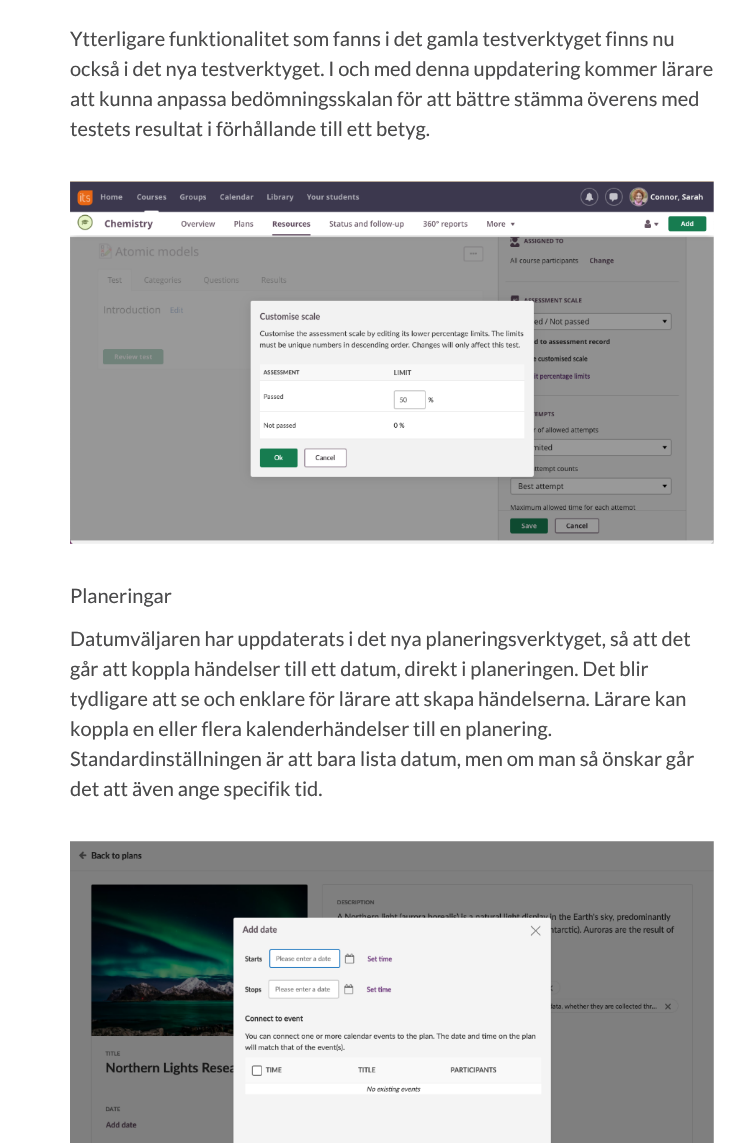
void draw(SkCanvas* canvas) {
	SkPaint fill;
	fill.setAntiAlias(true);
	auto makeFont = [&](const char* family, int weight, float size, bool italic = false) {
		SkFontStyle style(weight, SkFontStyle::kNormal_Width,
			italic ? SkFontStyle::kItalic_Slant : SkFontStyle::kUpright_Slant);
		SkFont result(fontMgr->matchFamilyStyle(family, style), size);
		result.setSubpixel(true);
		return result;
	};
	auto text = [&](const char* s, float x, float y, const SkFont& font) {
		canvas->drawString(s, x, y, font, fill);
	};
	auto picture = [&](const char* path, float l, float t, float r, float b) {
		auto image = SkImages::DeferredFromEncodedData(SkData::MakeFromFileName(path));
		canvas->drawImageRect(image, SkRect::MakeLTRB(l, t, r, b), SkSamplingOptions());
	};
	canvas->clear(0xFFFFFFFF);
	picture("image0.png", 70, 181, 714, 544);
	picture("image1.png", 70, 841, 714, 1143);
	auto font1 = makeFont("Lato", 400, 20);
	fill.setColor(0xFF4A4A4B);
	text("Ytterligare funktionalitet som fanns i det gamla testverktyget finns nu", 70, 46, font1);
	text("också i det nya testverktyget. I och med denna uppdatering kommer lärare", 70, 76, font1);
	text("att kunna anpassa bedömningsskalan för att bättre stämma överens med", 70, 106, font1);
	text("testets resultat i förhållande till ett betyg.", 70, 136, font1);
	text("Planeringar", 70, 603, font1);
	text("Datumväljaren har uppdaterats i det nya planeringsverktyget, så att det", 70, 646, font1);
	text("går att koppla händelser till ett datum, direkt i planeringen. Det blir", 70, 676, font1);
	text("tydligare att se och enklare för lärare att skapa händelserna. Lärare kan", 70, 706, font1);
	text("koppla en eller flera kalenderhändelser till en planering.", 70, 736, font1);
	text("Standardinställningen är att bara lista datum, men om man så önskar går", 70, 766, font1);
	text("det att även ange specifik tid.", 70, 796, font1);
}
